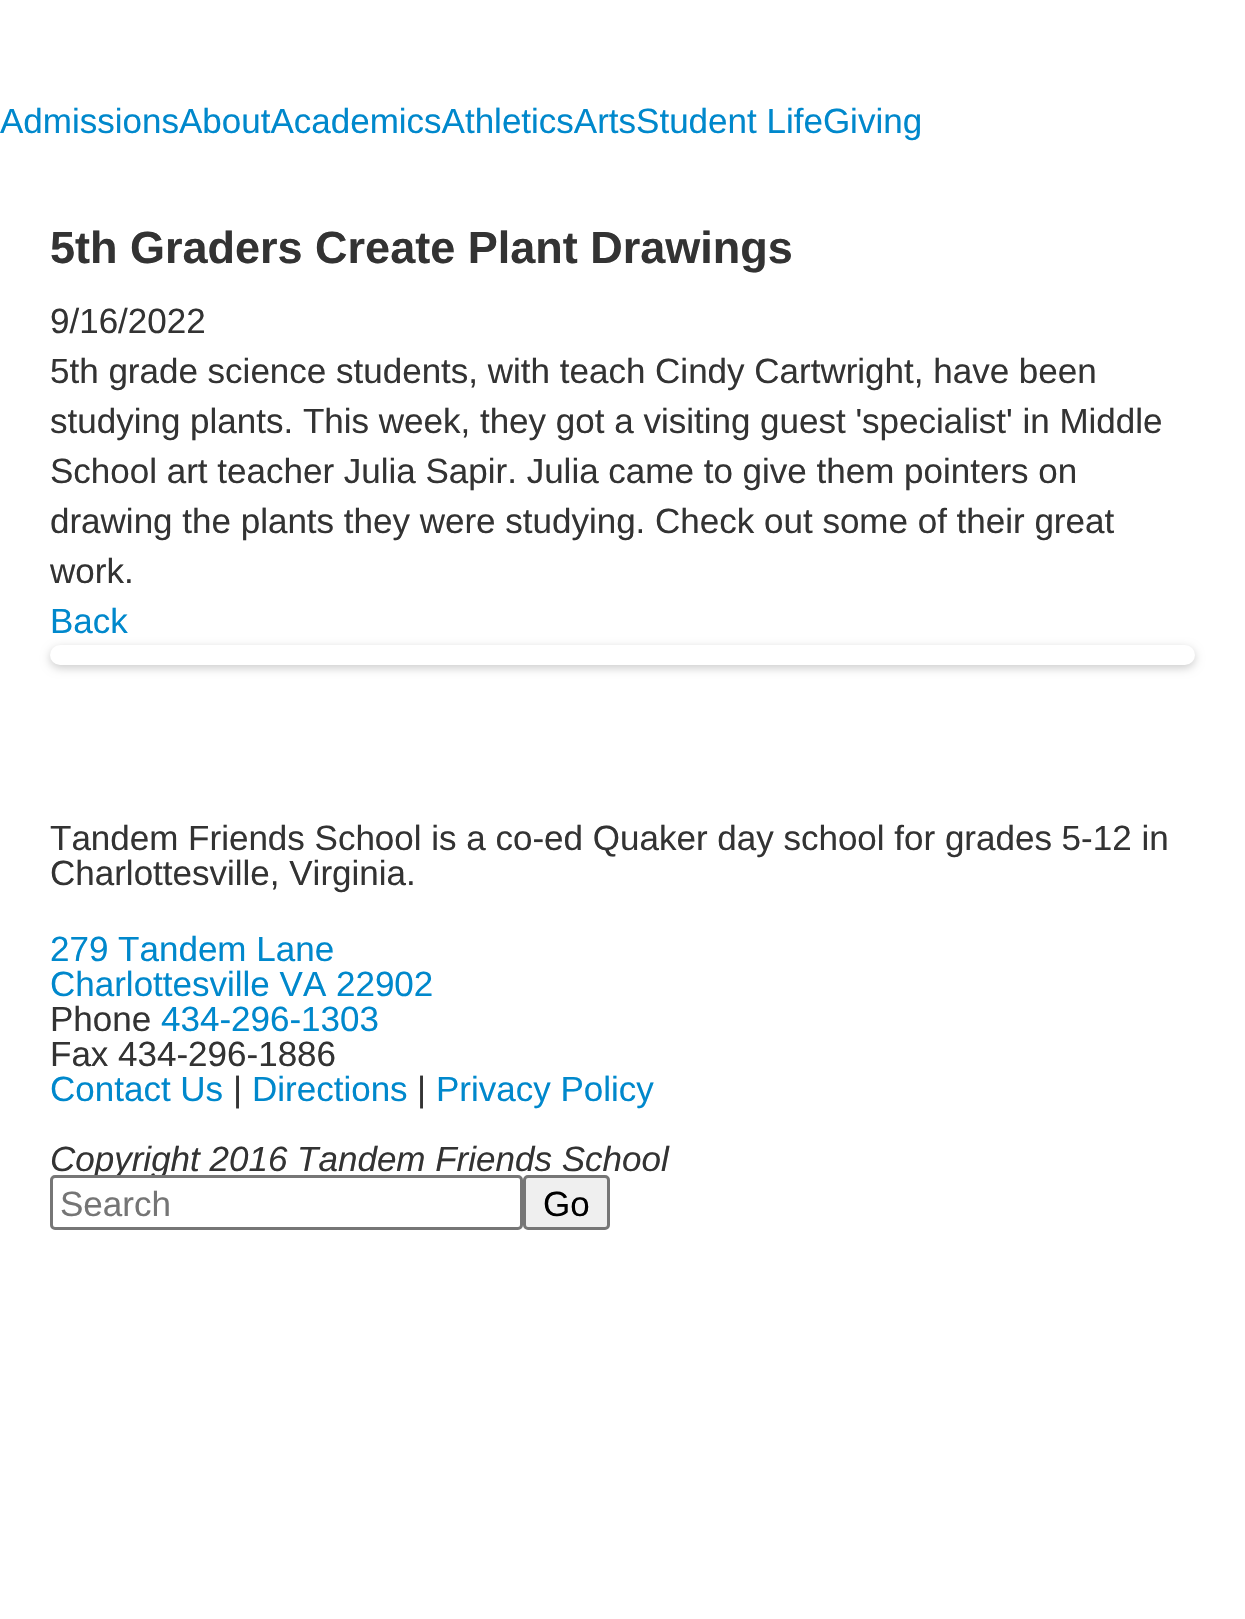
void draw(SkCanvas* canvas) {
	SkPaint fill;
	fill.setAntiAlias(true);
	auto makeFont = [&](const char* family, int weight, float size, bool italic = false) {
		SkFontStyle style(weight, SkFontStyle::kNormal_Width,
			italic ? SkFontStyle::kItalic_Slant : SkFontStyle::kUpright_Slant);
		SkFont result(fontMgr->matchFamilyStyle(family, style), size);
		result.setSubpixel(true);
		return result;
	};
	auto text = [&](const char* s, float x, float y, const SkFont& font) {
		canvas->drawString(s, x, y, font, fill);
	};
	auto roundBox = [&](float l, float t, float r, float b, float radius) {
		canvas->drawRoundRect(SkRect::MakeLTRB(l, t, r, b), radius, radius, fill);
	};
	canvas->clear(0xFFFFFFFF);
	fill.setColor(0x33000000);
	fill.setMaskFilter(SkMaskFilter::MakeBlur(kNormal_SkBlurStyle, 5));
	canvas->drawRoundRect(SkRect::MakeLTRB(50, 648, 1195, 668), 10, 10, fill);
	fill.setMaskFilter(nullptr);
	fill.setColor(0xFFFFFFFF);
	roundBox(50, 645, 1195, 665, 10);
	auto font1 = makeFont("Liberation Sans", 400, 35);
	fill.setColor(0xFF0088CC);
	text("AdmissionsAboutAcademicsAthleticsArtsStudent LifeGiving", 0, 133, font1);
	auto font2 = makeFont("Liberation Sans", 700, 45);
	fill.setColor(0xFF333333);
	text("5th Graders Create Plant Drawings", 50, 263, font2);
	text("9/16/2022", 50, 333, font1);
	text("5th grade science students, with teach Cindy Cartwright, have been", 50, 383, font1);
	text("studying plants. This week, they got a visiting guest 'specialist' in Middle", 50, 433, font1);
	text("School art teacher Julia Sapir. Julia came to give them pointers on", 50, 483, font1);
	text("drawing the plants they were studying. Check out some of their great", 50, 533, font1);
	text("work.", 50, 583, font1);
	fill.setColor(0xFF0088CC);
	text("Back", 50, 633, font1);
	fill.setColor(0xFF333333);
	text("Tandem Friends School is a co-ed Quaker day school for grades 5-12 in", 50, 850, font1);
	text("Charlottesville, Virginia.", 50, 885, font1);
	fill.setColor(0xFF0088CC);
	text("279 Tandem Lane", 50, 961, font1);
	text("Charlottesville VA 22902", 50, 996, font1);
	fill.setColor(0xFF333333);
	text("Phone", 50, 1031, font1);
	fill.setColor(0xFF0088CC);
	text("434-296-1303", 161, 1031, font1);
	fill.setColor(0xFF333333);
	text("Fax 434-296-1886", 50, 1066, font1);
	fill.setColor(0xFF0088CC);
	text("Contact Us", 50, 1101, font1);
	fill.setColor(0xFF333333);
	text("|", 233, 1101, font1);
	fill.setColor(0xFF0088CC);
	text("Directions", 252, 1101, font1);
	fill.setColor(0xFF333333);
	text("|", 417, 1101, font1);
	fill.setColor(0xFF0088CC);
	text("Privacy Policy", 436, 1101, font1);
	auto font3 = makeFont("Liberation Sans", 400, 35, true);
	fill.setColor(0xFF333333);
	text("Copyright 2016 Tandem Friends School", 50, 1171, font3);
	fill.setColor(0xFFFFFFFF);
	canvas->drawRoundRect(SkRect::MakeLTRB(51.5f, 1176.5f, 521.5f, 1228.5f), 3.5f, 3.5f, fill);
	fill.setStyle(SkPaint::kStroke_Style);
	fill.setStrokeWidth(3);
	fill.setColor(0xFF767676);
	canvas->drawRoundRect(SkRect::MakeLTRB(51.5f, 1176.5f, 521.5f, 1228.5f), 3.5f, 3.5f, fill);
	fill.setStyle(SkPaint::kFill_Style);
	fill.setColor(0xFF757575);
	text("Search", 60, 1216, font1);
	fill.setColor(0xFFEFEFEF);
	canvas->drawRoundRect(SkRect::MakeLTRB(524.5f, 1176.5f, 608.5f, 1228.5f), 3.5f, 3.5f, fill);
	fill.setStyle(SkPaint::kStroke_Style);
	fill.setColor(0xFF767676);
	canvas->drawRoundRect(SkRect::MakeLTRB(524.5f, 1176.5f, 608.5f, 1228.5f), 3.5f, 3.5f, fill);
	fill.setStyle(SkPaint::kFill_Style);
	fill.setColor(0xFF000000);
	text("Go", 543, 1216, font1);
}
